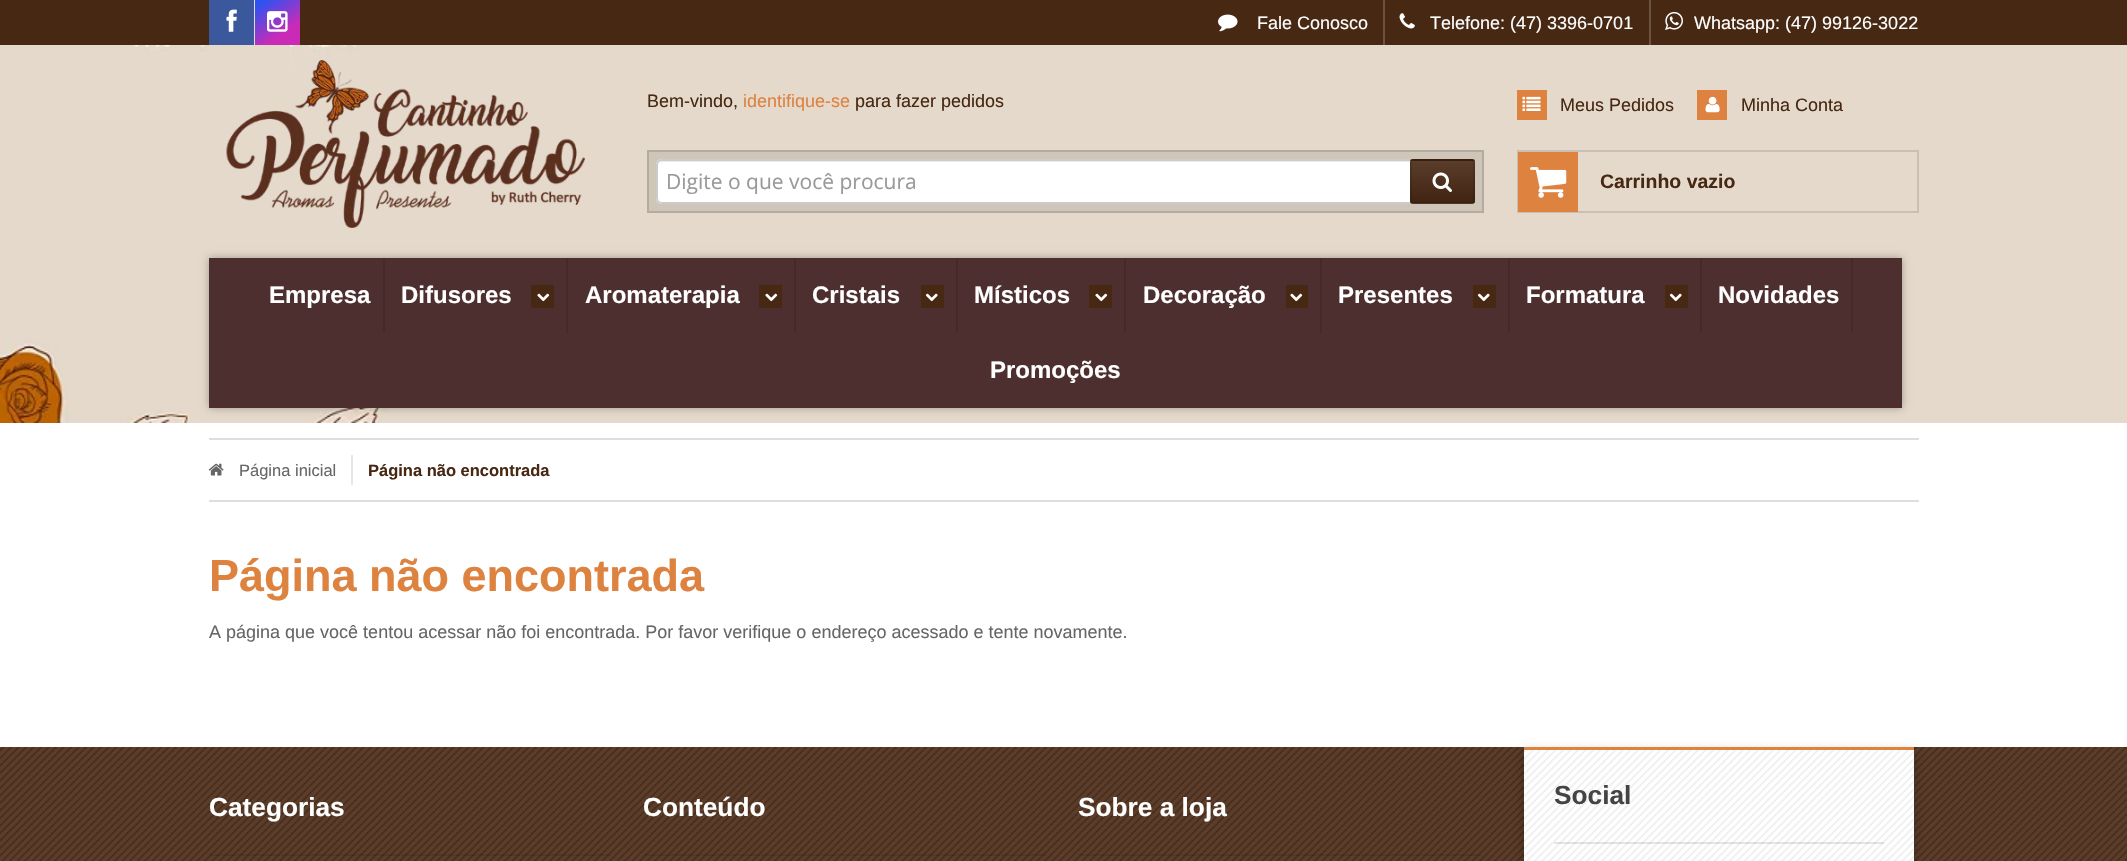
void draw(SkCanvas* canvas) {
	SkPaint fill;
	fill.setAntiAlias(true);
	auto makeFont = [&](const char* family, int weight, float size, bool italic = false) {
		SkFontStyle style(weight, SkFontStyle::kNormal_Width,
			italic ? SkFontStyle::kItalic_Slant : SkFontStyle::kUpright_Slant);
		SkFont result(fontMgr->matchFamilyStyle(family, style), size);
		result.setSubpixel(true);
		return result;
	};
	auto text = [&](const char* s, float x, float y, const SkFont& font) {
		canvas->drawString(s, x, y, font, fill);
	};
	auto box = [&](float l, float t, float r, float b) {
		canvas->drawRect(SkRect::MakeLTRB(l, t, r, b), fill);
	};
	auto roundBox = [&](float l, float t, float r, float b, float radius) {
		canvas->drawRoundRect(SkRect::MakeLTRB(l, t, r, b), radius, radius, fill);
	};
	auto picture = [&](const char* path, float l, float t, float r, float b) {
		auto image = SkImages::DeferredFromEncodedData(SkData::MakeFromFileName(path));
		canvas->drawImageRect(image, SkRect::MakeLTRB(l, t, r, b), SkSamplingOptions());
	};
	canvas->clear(0xFFFFFFFF);
	fill.setColor(0xFF472812);
	box(0, 0, 2127, 45);
	fill.setColor(0xFF3A589B);
	box(209, 0, 254, 45);
	picture("image0.png", 226, 9, 237, 32);
	fill.setColor(0xFFDDDDDD);
	box(254, 0, 255, 45);
	{
		const SkColor colors[] = {0xFF3051F1, 0xFFC92BB7};
		const float stops[] = {0.1f, 0.7f};
		const SkPoint ends[] = {{260, -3.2f}, {295, 48}};
		fill.setShader(SkGradientShader::MakeLinear(ends, colors, stops, 2, SkTileMode::kClamp));
		fill.setAlpha(255);
	}
	box(255, 0, 300, 45);
	picture("image1.png", 267, 11, 288, 32);
	picture("image2.png", 1218, 14, 1238, 32);
	fill.setShader(nullptr);
	fill.setColor(0xFF6C5341);
	box(1383, 0, 1385, 45);
	picture("image3.png", 1399, 13, 1415, 29);
	box(1649, 0, 1651, 45);
	picture("image4.png", 1665, 11, 1683, 30);
	picture("image5.png", 0, 45, 2127, 423);
	picture("image6.png", 226, 60, 585, 228);
	fill.setColor(0xFFDE8240);
	box(1517, 90, 1547, 120);
	picture("image7.png", 1522, 96, 1541, 111);
	box(1697, 90, 1727, 120);
	picture("image8.png", 1705, 96, 1720, 113);
	fill.setColor(0xFFCFC5B9);
	canvas->drawRect(SkRect::MakeLTRB(648, 151, 1483, 212), fill);
	fill.setStyle(SkPaint::kStroke_Style);
	fill.setStrokeWidth(2);
	fill.setColor(0xFFB4ABA1);
	canvas->drawRect(SkRect::MakeLTRB(648, 151, 1483, 212), fill);
	fill.setStyle(SkPaint::kFill_Style);
	fill.setColor(0xFFFFFFFF);
	roundBox(656, 159, 1446, 204, 6);
	fill.setColor(0xFFECECEC);
	canvas->drawPath(SkPathBuilder().moveTo(662, 162).lineTo(1440, 162).cubicTo(1442, 162, 1444, 164, 1444, 166).lineTo(1444, 201).cubicTo(1445, 200, 1445, 199, 1445, 198).lineTo(1445, 166).cubicTo(1445, 163, 1443, 161, 1440, 161).lineTo(662, 161).cubicTo(659, 161, 657, 163, 657, 166).cubicTo(657, 164, 659, 162, 662, 162).close().detach(), fill);
	fill.setStyle(SkPaint::kStroke_Style);
	fill.setColor(0xFFCCCCCC);
	canvas->drawRoundRect(SkRect::MakeLTRB(657, 160, 1445, 203), 5, 5, fill);
	fill.setStyle(SkPaint::kFill_Style);
	fill.setColor(0xFF472812);
	roundBox(1410, 159, 1475, 204, 3);
	{
		const SkColor colors[] = {0x1AFFFFFF, 0x1A000000};
		const float stops[] = {0, 1};
		const SkPoint ends[] = {{1442, 119}, {1442, 161}};
		fill.setShader(SkGradientShader::MakeLinear(ends, colors, stops, 2, SkTileMode::kClamp));
		fill.setAlpha(255);
	}
	box(1410, 159, 1475, 161);
	{
		const SkColor colors[] = {0x1AFFFFFF, 0x1A000000};
		const float stops[] = {0, 1};
		const SkPoint ends[] = {{1442, 161}, {1442, 203}};
		fill.setShader(SkGradientShader::MakeLinear(ends, colors, stops, 2, SkTileMode::kClamp));
		fill.setAlpha(255);
	}
	box(1410, 161, 1475, 203);
	{
		const SkColor colors[] = {0x1AFFFFFF, 0x1A000000};
		const float stops[] = {0, 1};
		const SkPoint ends[] = {{1442, 203}, {1442, 245}};
		fill.setShader(SkGradientShader::MakeLinear(ends, colors, stops, 2, SkTileMode::kClamp));
		fill.setAlpha(255);
	}
	box(1410, 203, 1475, 204);
	fill.setStyle(SkPaint::kStroke_Style);
	fill.setShader(nullptr);
	fill.setColor(0x21000000);
	canvas->drawRoundRect(SkRect::MakeLTRB(1411, 160, 1474, 203), 2, 2, fill);
	picture("image9.png", 1432, 172, 1452, 192);
	fill.setColor(0xFFC9BFB3);
	canvas->drawRect(SkRect::MakeLTRB(1518, 151, 1918, 212), fill);
	fill.setStyle(SkPaint::kFill_Style);
	fill.setColor(0xFFDE8240);
	box(1518, 152, 1578, 212);
	picture("image10.png", 1530, 167, 1567, 198);
	fill.setColor(0x4D000000);
	fill.setMaskFilter(SkMaskFilter::MakeBlur(kNormal_SkBlurStyle, 4));
	canvas->drawRect(SkRect::MakeLTRB(209, 258, 1902, 408), fill);
	fill.setMaskFilter(nullptr);
	fill.setColor(0xFF4E2F2F);
	box(209, 258, 1902, 408);
	fill.setColor(0xFF462A2A);
	box(383, 258, 385, 333);
	box(566, 258, 568, 333);
	fill.setColor(0xFF472812);
	box(531, 285, 554, 308);
	picture("image11.png", 537, 293, 550, 302);
	fill.setColor(0xFF462A2A);
	box(794, 258, 796, 333);
	fill.setColor(0xFF472812);
	box(759, 285, 782, 308);
	picture("image11.png", 765, 293, 778, 302);
	fill.setColor(0xFF462A2A);
	box(956, 258, 958, 333);
	fill.setColor(0xFF472812);
	box(921, 285, 944, 308);
	picture("image12.png", 925, 293, 938, 302);
	fill.setColor(0xFF462A2A);
	box(1124, 258, 1126, 333);
	fill.setColor(0xFF472812);
	box(1089, 285, 1112, 308);
	picture("image11.png", 1095, 293, 1108, 302);
	fill.setColor(0xFF462A2A);
	box(1320, 258, 1322, 333);
	fill.setColor(0xFF472812);
	box(1286, 285, 1308, 308);
	picture("image11.png", 1290, 293, 1303, 302);
	fill.setColor(0xFF462A2A);
	box(1508, 258, 1510, 333);
	fill.setColor(0xFF472812);
	box(1473, 285, 1496, 308);
	picture("image12.png", 1477, 293, 1490, 302);
	fill.setColor(0xFF462A2A);
	box(1700, 258, 1702, 333);
	fill.setColor(0xFF472812);
	box(1665, 285, 1688, 308);
	picture("image12.png", 1669, 293, 1682, 302);
	fill.setColor(0xFF462A2A);
	box(1851, 258, 1853, 333);
	fill.setColor(0xFFDEDEDE);
	box(209, 438, 1919, 440);
	box(209, 500, 1919, 502);
	picture("image13.png", 208, 463, 224, 476);
	fill.setColor(0xFFE6E6E6);
	box(351, 455, 353, 485);
	fill.setColor(0xFF472812);
	box(0, 747, 2127, 861);
	picture("image14.png", 0, 747, 2127, 861);
	fill.setColor(0x1A000000);
	box(209, 854, 611, 856);
	box(644, 854, 1046, 856);
	box(1079, 854, 1481, 856);
	fill.setColor(0x4D000000);
	fill.setMaskFilter(SkMaskFilter::MakeBlur(kNormal_SkBlurStyle, 5));
	canvas->drawRect(SkRect::MakeLTRB(1524, 752, 1914, 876), fill);
	fill.setMaskFilter(nullptr);
	fill.setColor(0xFFFFFFFF);
	box(1524, 750, 1914, 861);
	picture("image15.png", 1524, 750, 1914, 861);
	fill.setColor(0xFFDE8240);
	box(1524, 747, 1914, 750);
	fill.setColor(0x1A000000);
	box(1554, 842, 1884, 844);
	auto font1 = makeFont("Liberation Sans", 400, 18);
	fill.setColor(0xFFFFFFFF);
	text("Fale Conosco", 1257, 29, font1);
	text("Telefone: (47) 3396-0701", 1430, 29, font1);
	text("Whatsapp: (47) 99126-3022", 1694, 29, font1);
	fill.setColor(0xFF472812);
	text("Bem-vindo,", 647, 107, font1);
	fill.setColor(0xFFDE8240);
	text("identifique-se", 743, 107, font1);
	fill.setColor(0xFF472812);
	text("para fazer pedidos", 855, 107, font1);
	text("Meus Pedidos", 1560, 111, font1);
	text("Minha Conta", 1741, 111, font1);
	auto font2 = makeFont("Open Sans", 400, 21);
	fill.setColor(0xFF999999);
	text("Digite o que você procura", 666, 189, font2);
	auto font3 = makeFont("Liberation Sans", 700, 19.5f);
	fill.setColor(0xFF472812);
	text("Carrinho vazio", 1600, 188, font3);
	auto font4 = makeFont("Liberation Sans", 700, 24);
	fill.setColor(0xFFFFFFFF);
	text("Empresa", 269, 303, font4);
	text("Difusores", 401, 303, font4);
	text("Aromaterapia", 585, 303, font4);
	text("Cristais", 812, 303, font4);
	text("Místicos", 974, 303, font4);
	text("Decoração", 1143, 303, font4);
	text("Presentes", 1338, 303, font4);
	text("Formatura", 1526, 303, font4);
	text("Novidades", 1718, 303, font4);
	text("Promoções", 990, 378, font4);
	auto font5 = makeFont("Liberation Sans", 400, 16.5f);
	fill.setColor(0xFF666666);
	text("Página inicial", 239, 476, font5);
	auto font6 = makeFont("Liberation Sans", 700, 16.5f);
	fill.setColor(0xFF472812);
	text("Página não encontrada", 368, 476, font6);
	auto font7 = makeFont("Liberation Sans", 700, 45);
	fill.setColor(0xFFDE8240);
	text("Página não encontrada", 209, 591, font7);
	fill.setColor(0xFF666666);
	text("A página que você tentou acessar não foi encontrada. Por favor verifique o endereço acessado e tente novamente.", 209, 638, font1);
	auto font8 = makeFont("Liberation Sans", 700, 26.25f);
	fill.setColor(0xFFFFFFFF);
	text("Categorias", 209, 816, font8);
	text("Conteúdo", 643, 816, font8);
	text("Sobre a loja", 1078, 816, font8);
	fill.setColor(0xFF444444);
	text("Social", 1554, 804, font8);
}
